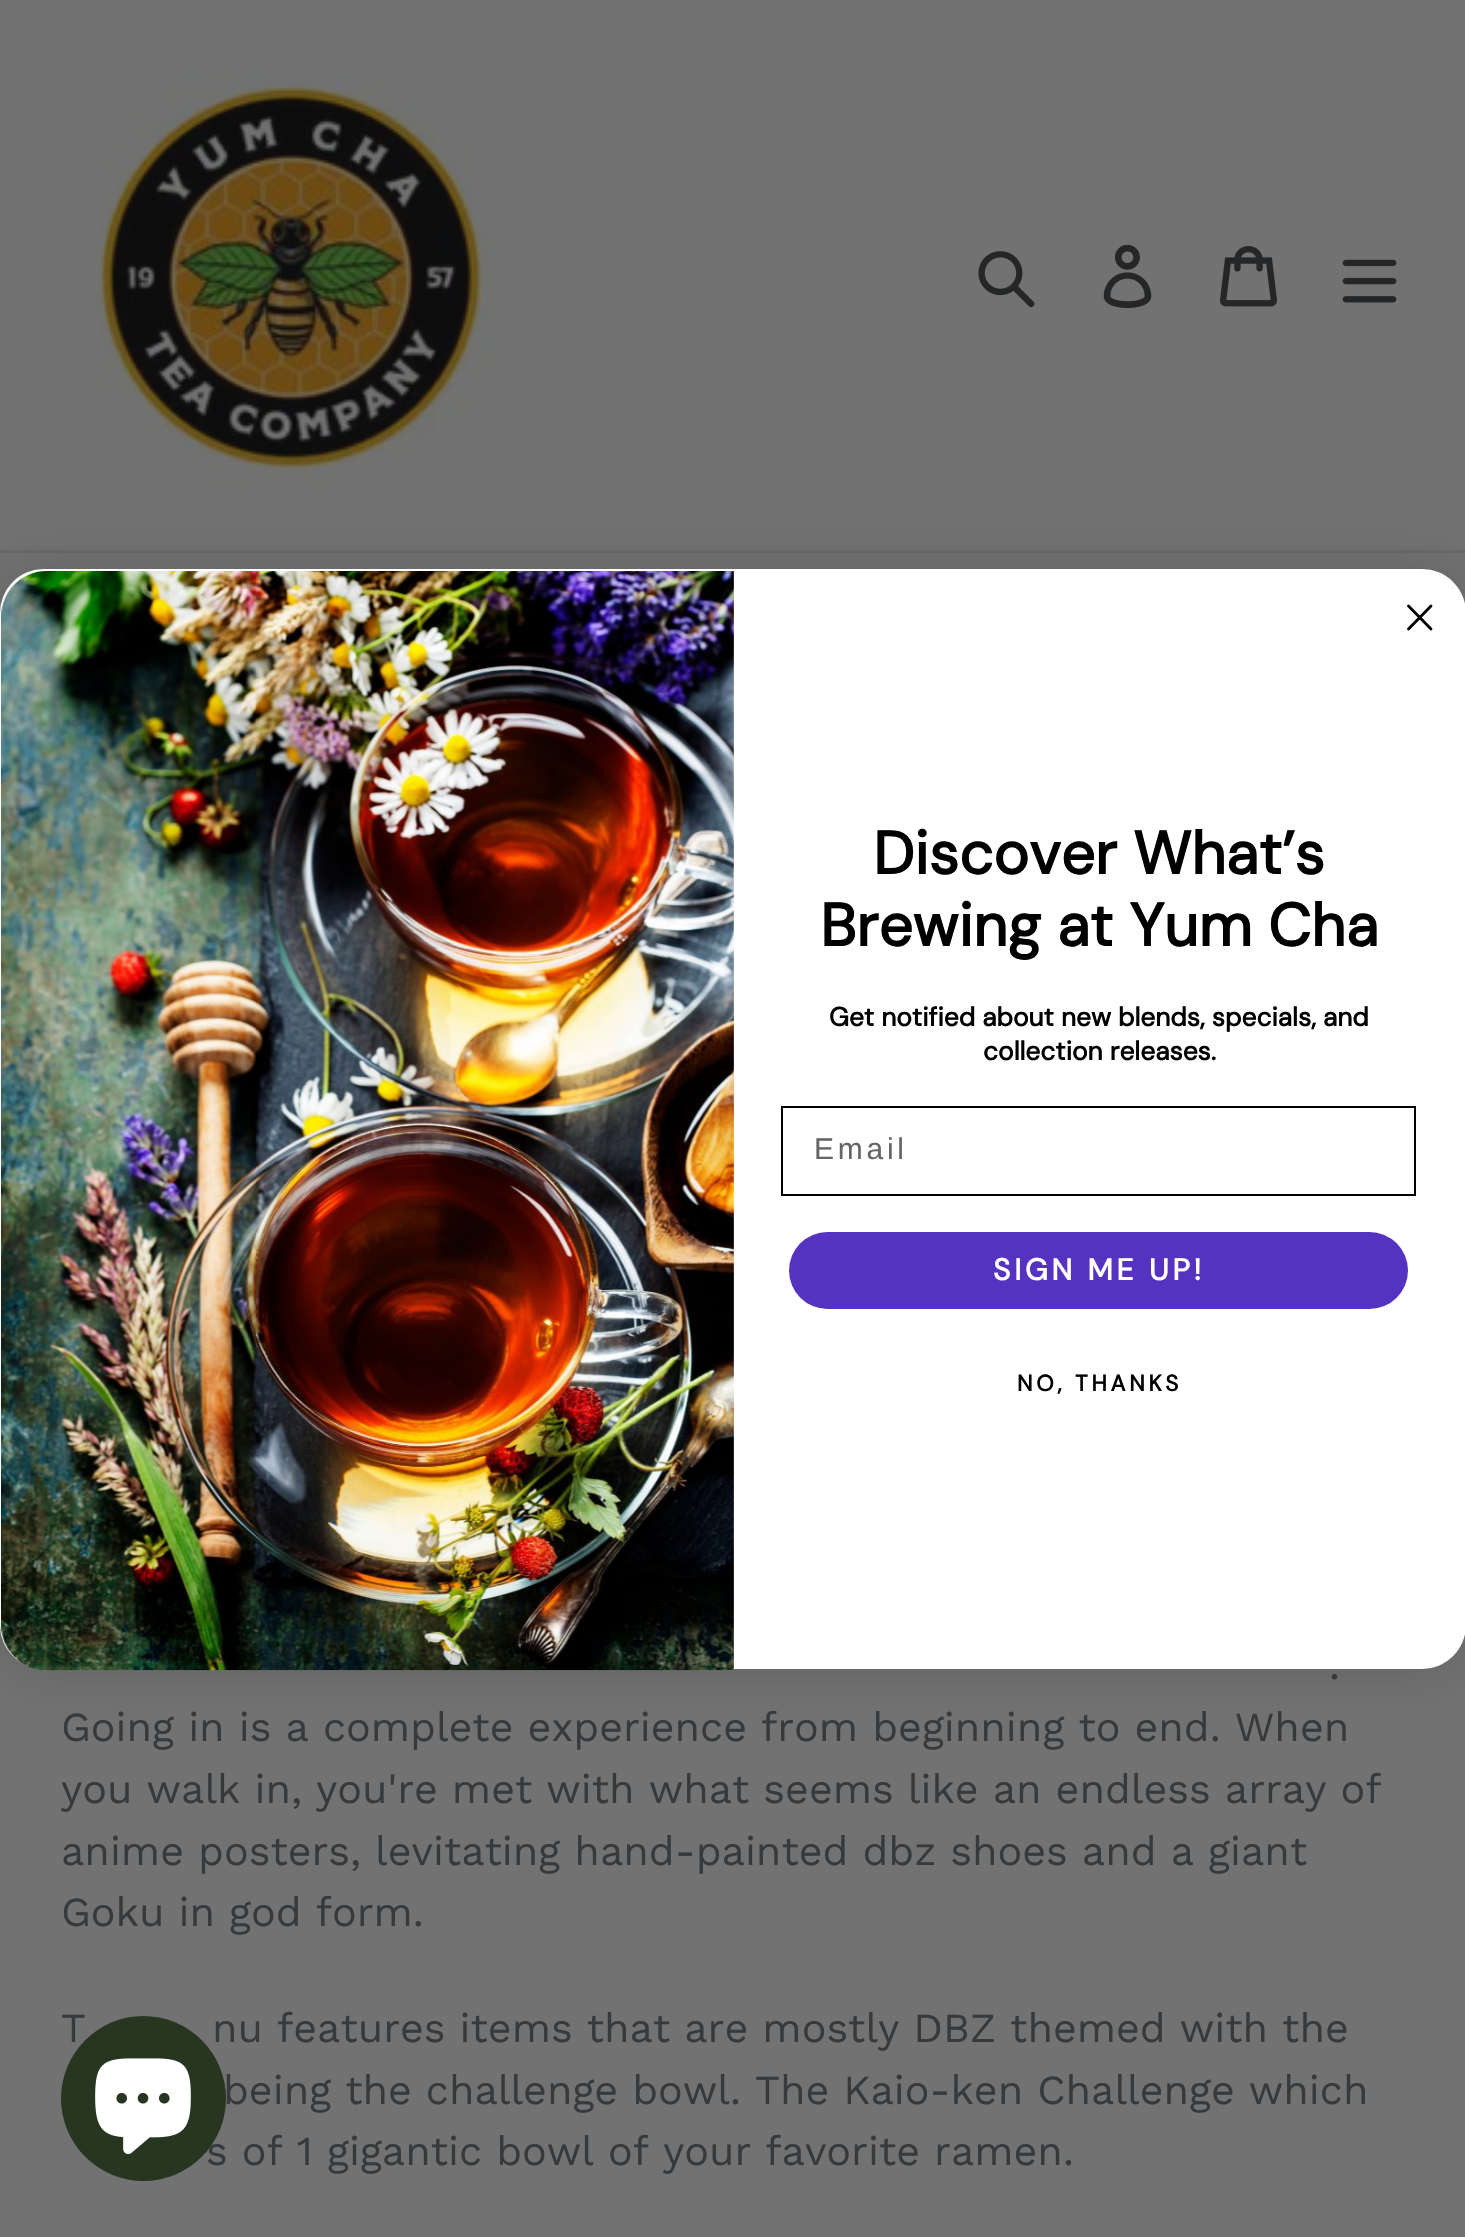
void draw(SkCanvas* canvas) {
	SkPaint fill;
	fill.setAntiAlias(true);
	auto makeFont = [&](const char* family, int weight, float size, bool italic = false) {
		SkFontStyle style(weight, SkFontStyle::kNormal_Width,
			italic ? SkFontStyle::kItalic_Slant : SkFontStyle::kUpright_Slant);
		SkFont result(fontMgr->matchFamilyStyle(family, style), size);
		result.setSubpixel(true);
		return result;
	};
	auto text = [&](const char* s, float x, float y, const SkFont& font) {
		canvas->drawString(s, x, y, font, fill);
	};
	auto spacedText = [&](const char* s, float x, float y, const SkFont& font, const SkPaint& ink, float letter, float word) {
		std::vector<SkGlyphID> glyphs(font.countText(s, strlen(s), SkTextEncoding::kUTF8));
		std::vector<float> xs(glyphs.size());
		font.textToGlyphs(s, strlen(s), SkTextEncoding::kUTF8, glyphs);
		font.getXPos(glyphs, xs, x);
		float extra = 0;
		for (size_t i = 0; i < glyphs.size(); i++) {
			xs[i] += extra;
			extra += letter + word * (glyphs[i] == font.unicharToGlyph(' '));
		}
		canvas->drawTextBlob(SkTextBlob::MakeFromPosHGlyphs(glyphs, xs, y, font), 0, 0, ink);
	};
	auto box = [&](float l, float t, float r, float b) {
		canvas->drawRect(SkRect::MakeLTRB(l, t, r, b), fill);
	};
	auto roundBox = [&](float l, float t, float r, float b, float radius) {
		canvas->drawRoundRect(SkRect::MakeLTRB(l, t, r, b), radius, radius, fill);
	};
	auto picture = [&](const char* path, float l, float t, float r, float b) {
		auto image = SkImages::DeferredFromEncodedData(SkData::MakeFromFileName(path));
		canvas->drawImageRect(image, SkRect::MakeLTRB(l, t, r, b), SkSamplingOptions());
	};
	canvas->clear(0xFF727272);
	fill.setColor(0xFF69696A);
	box(0, 550, 1465, 553);
	picture("image0.png", 96, 66, 497, 488);
	picture("image1.png", 978, 251, 1035, 308);
	picture("image2.png", 1103, 245, 1152, 308);
	picture("image3.png", 1220, 246, 1277, 307);
	picture("image4.png", 1342, 259, 1397, 303);
	fill.setColor(0x26000000);
	fill.setMaskFilter(SkMaskFilter::MakeBlur(kNormal_SkBlurStyle, 28));
	canvas->drawRoundRect(SkRect::MakeLTRB(0, 569, 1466, 1669), 44, 44, fill);
	fill.setMaskFilter(nullptr);
	fill.setColor(0xFFFFFFFF);
	roundBox(0, 569, 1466, 1669, 44);
	fill.setStyle(SkPaint::kStroke_Style);
	fill.setStrokeWidth(2.8f);
	fill.setStrokeCap(SkPaint::kRound_Cap);
	fill.setStrokeJoin(SkPaint::kRound_Join);
	fill.setColor(0xFF000000);
	canvas->drawPath(SkPathBuilder().moveTo(1408.5f, 606).lineTo(1431, 629).moveTo(1408.5f, 629).lineTo(1431, 606).close().detach(), fill);
	picture("image5.png", 1, 571, 734, 1671);
	fill.setStrokeWidth(2);
	fill.setStrokeCap(SkPaint::kButt_Cap);
	fill.setStrokeJoin(SkPaint::kMiter_Join);
	canvas->drawRect(SkRect::MakeLTRB(782, 1107, 1415, 1195), fill);
	fill.setStyle(SkPaint::kFill_Style);
	fill.setColor(0xFF5632C0);
	roundBox(789, 1232, 1408, 1309, 38.5f);
	auto font1 = makeFont("DM Sans", 700, 60.1f);
	fill.setColor(0xFF000000);
	text("Discover What’s", 873, 874, font1);
	text("Brewing at Yum Cha", 820, 946, font1);
	auto font2 = makeFont("DM Sans", 700, 26.3f);
	text("Get notified about new blends, specials, and", 829, 1026, font2);
	text("collection releases.", 983, 1060, font2);
	auto font3 = makeFont("Liberation Sans", 400, 30);
	fill.setColor(0xFF666666);
	spacedText("Email", 814, 1159, font3, fill, 3.75f, 0);
	auto font4 = makeFont("DM Sans", 700, 30);
	fill.setColor(0xFFFFFFFF);
	spacedText("SIGN ME UP!", 993, 1280, font4, fill, 3.75f, 0);
	auto font5 = makeFont("DM Sans", 700, 22.5f);
	fill.setColor(0xFF000000);
	spacedText("NO, THANKS", 1017, 1391, font5, fill, 3.75f, 0);
	auto font6 = makeFont("Work Sans", 400, 41.25f);
	fill.setColor(0xFF363A3D);
	text(".", 1329, 1679, font6);
	text("Going in is a complete experience from beginning to end. When", 61, 1741, font6);
	text("you walk in, you're met with what seems like an endless array of", 61, 1803, font6);
	text("anime posters, levitating hand-painted dbz shoes and a giant", 61, 1865, font6);
	text("Goku in god form.", 61, 1926, font6);
	text("T", 61, 2042, font6);
	text("nu features items that are mostly DBZ themed with the", 212, 2042, font6);
	text("being the challenge bowl. The Kaio-ken Challenge which", 223, 2104, font6);
	text("s of 1 gigantic bowl of your favorite ramen.", 206, 2165, font6);
	fill.setColor(0xFF273620);
	canvas->drawCircle(143.5f, 2098.5f, 82.5f, fill);
	picture("image6.png", 95, 2058, 191, 2155);
}
